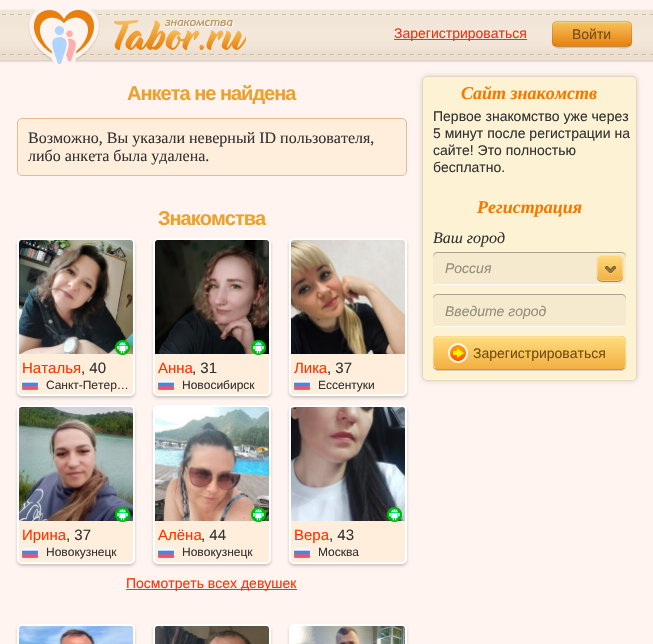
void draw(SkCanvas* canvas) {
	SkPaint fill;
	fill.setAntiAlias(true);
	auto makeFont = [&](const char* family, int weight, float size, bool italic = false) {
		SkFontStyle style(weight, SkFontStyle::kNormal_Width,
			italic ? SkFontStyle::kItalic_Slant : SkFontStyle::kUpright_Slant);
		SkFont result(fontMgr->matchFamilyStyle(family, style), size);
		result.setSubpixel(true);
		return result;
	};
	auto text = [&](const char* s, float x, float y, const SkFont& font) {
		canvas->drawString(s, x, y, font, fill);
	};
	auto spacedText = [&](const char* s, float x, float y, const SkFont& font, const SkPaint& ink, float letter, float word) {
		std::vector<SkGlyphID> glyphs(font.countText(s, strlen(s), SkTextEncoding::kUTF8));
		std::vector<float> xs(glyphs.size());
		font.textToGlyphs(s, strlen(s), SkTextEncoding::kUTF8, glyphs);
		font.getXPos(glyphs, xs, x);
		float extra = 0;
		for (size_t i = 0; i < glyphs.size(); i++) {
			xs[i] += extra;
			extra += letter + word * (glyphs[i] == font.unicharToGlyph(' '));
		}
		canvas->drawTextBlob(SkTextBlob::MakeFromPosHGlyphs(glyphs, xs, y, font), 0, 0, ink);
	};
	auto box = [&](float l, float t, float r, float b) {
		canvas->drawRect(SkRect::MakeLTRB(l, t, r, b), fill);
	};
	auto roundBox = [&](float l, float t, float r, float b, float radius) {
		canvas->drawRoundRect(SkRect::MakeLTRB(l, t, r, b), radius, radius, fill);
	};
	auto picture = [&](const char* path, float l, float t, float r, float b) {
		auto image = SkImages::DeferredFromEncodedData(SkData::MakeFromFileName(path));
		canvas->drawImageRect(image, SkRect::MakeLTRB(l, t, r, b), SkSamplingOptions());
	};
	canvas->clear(0xFFFFF4F0);
	picture("image0.png", 0, 9, 653, 63);
	picture("image1.png", 28, 9, 246, 65);
	fill.setColor(0xFFE8380F);
	box(394, 39, 527, 40);
	fill.setColor(0xFFCCC1B5);
	canvas->drawPath(SkPathBuilder().moveTo(552, 42).cubicTo(552, 51, 563, 48, 569, 48).lineTo(615, 48).cubicTo(621, 48, 632, 51, 632, 42).cubicTo(632, 45, 630, 47, 627, 47).lineTo(557, 47).cubicTo(554, 47, 552, 45, 552, 42).close().detach(), fill);
	fill.setColor(0xFFF6C25B);
	roundBox(552, 21, 632, 47, 5);
	canvas->save();
	canvas->clipPath(SkPathBuilder().moveTo(557, 21).lineTo(627, 21).cubicTo(630, 21, 632, 23, 632, 26).lineTo(632, 42).cubicTo(632, 45, 630, 47, 627, 47).lineTo(557, 47).cubicTo(554, 47, 552, 45, 552, 42).lineTo(552, 26).cubicTo(552, 23, 554, 21, 557, 21).close().detach(), true);
	{
		const SkColor colors[] = {0xFFF6C25B, 0xFFE8800F};
		const float stops[] = {0, 1};
		const SkPoint ends[] = {{592, 22}, {592, 46}};
		fill.setShader(SkGradientShader::MakeLinear(ends, colors, stops, 2, SkTileMode::kClamp));
		fill.setAlpha(255);
	}
	box(552, 22, 632, 46);
	canvas->restore();
	fill.setShader(nullptr);
	fill.setColor(0x40FFFFFF);
	canvas->drawPath(SkPathBuilder().moveTo(557, 23).lineTo(627, 23).cubicTo(629, 23, 631, 25, 631, 27).cubicTo(631, 19, 620, 22, 615, 22).lineTo(569, 22).cubicTo(564, 22, 553, 19, 553, 27).cubicTo(553, 25, 555, 23, 557, 23).close().detach(), fill);
	fill.setStyle(SkPaint::kStroke_Style);
	fill.setStrokeWidth(1);
	fill.setColor(0x40000000);
	canvas->drawPath(SkPathBuilder().moveTo(630, 45).lineTo(627.5f, 46.5f).lineTo(556.5f, 46.5f).lineTo(554, 45).detach(), fill);
	fill.setColor(0x1A000000);
	canvas->drawPath(SkPathBuilder().moveTo(554, 45).cubicTo(551.5f, 43, 552.5f, 39.5f, 552.5f, 36.5f).cubicTo(552.5f, 20, 551, 21.5f, 568.5f, 21.5f).lineTo(615.5f, 21.5f).cubicTo(633, 21.5f, 631.5f, 20, 631.5f, 36.5f).cubicTo(631.5f, 39.5f, 632.5f, 43, 630, 45).detach(), fill);
	fill.setStyle(SkPaint::kFill_Style);
	fill.setColor(0xFFFFEEDB);
	canvas->drawRoundRect(SkRect::MakeLTRB(17.5f, 118.5f, 406.5f, 175.5f), 4.5f, 4.5f, fill);
	fill.setStyle(SkPaint::kStroke_Style);
	fill.setColor(0xFFE8B992);
	canvas->drawRoundRect(SkRect::MakeLTRB(17.5f, 118.5f, 406.5f, 175.5f), 4.5f, 4.5f, fill);
	fill.setStyle(SkPaint::kFill_Style);
	fill.setColor(0x33000000);
	fill.setMaskFilter(SkMaskFilter::MakeBlur(kNormal_SkBlurStyle, 1.5f));
	canvas->drawRoundRect(SkRect::MakeLTRB(17, 240, 135, 398), 5, 5, fill);
	fill.setMaskFilter(nullptr);
	fill.setColor(0xFFFFEEDB);
	canvas->drawRoundRect(SkRect::MakeLTRB(18, 239, 134, 395), 4, 4, fill);
	fill.setStyle(SkPaint::kStroke_Style);
	fill.setStrokeWidth(2);
	fill.setColor(0xFFFFFFFF);
	canvas->drawRoundRect(SkRect::MakeLTRB(18, 239, 134, 395), 4, 4, fill);
	picture("image2.png", 19, 240, 133, 354);
	picture("image3.png", 115, 340, 130, 355);
	picture("image4.png", 22, 379, 38, 390);
	fill.setStyle(SkPaint::kFill_Style);
	fill.setColor(0x33000000);
	fill.setMaskFilter(SkMaskFilter::MakeBlur(kNormal_SkBlurStyle, 1.5f));
	canvas->drawRoundRect(SkRect::MakeLTRB(153, 240, 271, 398), 5, 5, fill);
	fill.setMaskFilter(nullptr);
	fill.setColor(0xFFFFEEDB);
	canvas->drawRoundRect(SkRect::MakeLTRB(154, 239, 270, 395), 4, 4, fill);
	fill.setStyle(SkPaint::kStroke_Style);
	fill.setColor(0xFFFFFFFF);
	canvas->drawRoundRect(SkRect::MakeLTRB(154, 239, 270, 395), 4, 4, fill);
	picture("image5.png", 155, 240, 269, 354);
	picture("image6.png", 251, 340, 266, 355);
	picture("image4.png", 158, 379, 174, 390);
	fill.setStyle(SkPaint::kFill_Style);
	fill.setColor(0x33000000);
	fill.setMaskFilter(SkMaskFilter::MakeBlur(kNormal_SkBlurStyle, 1.5f));
	canvas->drawRoundRect(SkRect::MakeLTRB(289, 240, 407, 398), 5, 5, fill);
	fill.setMaskFilter(nullptr);
	fill.setColor(0xFFFFEEDB);
	canvas->drawRoundRect(SkRect::MakeLTRB(290, 239, 406, 395), 4, 4, fill);
	fill.setStyle(SkPaint::kStroke_Style);
	fill.setColor(0xFFFFFFFF);
	canvas->drawRoundRect(SkRect::MakeLTRB(290, 239, 406, 395), 4, 4, fill);
	picture("image7.png", 291, 240, 405, 354);
	picture("image4.png", 294, 379, 310, 390);
	fill.setStyle(SkPaint::kFill_Style);
	fill.setColor(0x33000000);
	fill.setMaskFilter(SkMaskFilter::MakeBlur(kNormal_SkBlurStyle, 1.5f));
	canvas->drawRoundRect(SkRect::MakeLTRB(17, 407, 135, 566), 5, 5, fill);
	fill.setMaskFilter(nullptr);
	fill.setColor(0xFFFFEEDB);
	canvas->drawRoundRect(SkRect::MakeLTRB(18, 406, 134, 563), 4, 4, fill);
	fill.setStyle(SkPaint::kStroke_Style);
	fill.setColor(0xFFFFFFFF);
	canvas->drawRoundRect(SkRect::MakeLTRB(18, 406, 134, 563), 4, 4, fill);
	picture("image8.png", 19, 407, 133, 521);
	picture("image9.png", 115, 507, 130, 522);
	picture("image4.png", 22, 547, 38, 558);
	fill.setStyle(SkPaint::kFill_Style);
	fill.setColor(0x33000000);
	fill.setMaskFilter(SkMaskFilter::MakeBlur(kNormal_SkBlurStyle, 1.5f));
	canvas->drawRoundRect(SkRect::MakeLTRB(153, 407, 271, 566), 5, 5, fill);
	fill.setMaskFilter(nullptr);
	fill.setColor(0xFFFFEEDB);
	canvas->drawRoundRect(SkRect::MakeLTRB(154, 406, 270, 563), 4, 4, fill);
	fill.setStyle(SkPaint::kStroke_Style);
	fill.setColor(0xFFFFFFFF);
	canvas->drawRoundRect(SkRect::MakeLTRB(154, 406, 270, 563), 4, 4, fill);
	picture("image10.png", 155, 407, 269, 521);
	picture("image11.png", 251, 507, 266, 522);
	picture("image4.png", 158, 547, 174, 558);
	fill.setStyle(SkPaint::kFill_Style);
	fill.setColor(0x33000000);
	fill.setMaskFilter(SkMaskFilter::MakeBlur(kNormal_SkBlurStyle, 1.5f));
	canvas->drawRoundRect(SkRect::MakeLTRB(289, 407, 407, 566), 5, 5, fill);
	fill.setMaskFilter(nullptr);
	fill.setColor(0xFFFFEEDB);
	canvas->drawRoundRect(SkRect::MakeLTRB(290, 406, 406, 563), 4, 4, fill);
	fill.setStyle(SkPaint::kStroke_Style);
	fill.setColor(0xFFFFFFFF);
	canvas->drawRoundRect(SkRect::MakeLTRB(290, 406, 406, 563), 4, 4, fill);
	picture("image12.png", 291, 407, 405, 521);
	picture("image13.png", 387, 507, 402, 522);
	picture("image4.png", 294, 547, 310, 558);
	fill.setStyle(SkPaint::kFill_Style);
	fill.setColor(0xFFFF3300);
	box(126, 589, 297, 590);
	fill.setColor(0x33000000);
	fill.setMaskFilter(SkMaskFilter::MakeBlur(kNormal_SkBlurStyle, 1.5f));
	canvas->drawRoundRect(SkRect::MakeLTRB(17, 626, 135, 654), 5, 5, fill);
	fill.setMaskFilter(nullptr);
	fill.setStyle(SkPaint::kStroke_Style);
	fill.setColor(0xFFFFFFFF);
	canvas->drawRoundRect(SkRect::MakeLTRB(18, 625, 134, 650), 4, 4, fill);
	picture("image14.png", 19, 626, 133, 644);
	fill.setStyle(SkPaint::kFill_Style);
	fill.setColor(0x33000000);
	fill.setMaskFilter(SkMaskFilter::MakeBlur(kNormal_SkBlurStyle, 1.5f));
	canvas->drawRoundRect(SkRect::MakeLTRB(153, 626, 271, 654), 5, 5, fill);
	fill.setMaskFilter(nullptr);
	fill.setStyle(SkPaint::kStroke_Style);
	fill.setColor(0xFFFFFFFF);
	canvas->drawRoundRect(SkRect::MakeLTRB(154, 625, 270, 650), 4, 4, fill);
	picture("image15.png", 155, 626, 269, 644);
	fill.setStyle(SkPaint::kFill_Style);
	fill.setColor(0x33000000);
	fill.setMaskFilter(SkMaskFilter::MakeBlur(kNormal_SkBlurStyle, 1.5f));
	canvas->drawRoundRect(SkRect::MakeLTRB(289, 626, 407, 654), 5, 5, fill);
	fill.setMaskFilter(nullptr);
	fill.setStyle(SkPaint::kStroke_Style);
	fill.setColor(0xFFFFFFFF);
	canvas->drawRoundRect(SkRect::MakeLTRB(290, 625, 406, 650), 4, 4, fill);
	picture("image16.png", 291, 626, 405, 644);
	fill.setStyle(SkPaint::kFill_Style);
	fill.setColor(0x26000000);
	fill.setMaskFilter(SkMaskFilter::MakeBlur(kNormal_SkBlurStyle, 2.5f));
	canvas->drawRoundRect(SkRect::MakeLTRB(422, 76, 637, 381), 5, 5, fill);
	fill.setMaskFilter(nullptr);
	fill.setColor(0xFFFDF2D4);
	roundBox(422, 76, 637, 381, 5);
	fill.setColor(0xFFFEF9EA);
	canvas->drawPath(SkPathBuilder().moveTo(423, 375).lineTo(423, 376).cubicTo(423, 378, 425, 380, 427, 380).lineTo(632, 380).cubicTo(634, 380, 636, 378, 636, 376).lineTo(636, 375).cubicTo(636, 377, 634, 379, 632, 379).lineTo(427, 379).cubicTo(425, 379, 423, 377, 423, 375).close().detach(), fill);
	fill.setStyle(SkPaint::kStroke_Style);
	fill.setStrokeWidth(1);
	fill.setColor(0xFFE4D5BE);
	canvas->drawRoundRect(SkRect::MakeLTRB(422.5f, 76.5f, 636.5f, 380.5f), 4.5f, 4.5f, fill);
	fill.setStyle(SkPaint::kFill_Style);
	fill.setColor(0xFFFFFCF6);
	canvas->drawPath(SkPathBuilder().moveTo(433, 279).lineTo(433, 280).cubicTo(433, 283, 435, 285, 438, 285).lineTo(621, 285).cubicTo(624, 285, 626, 283, 626, 280).lineTo(626, 279).cubicTo(626, 282, 624, 284, 621, 284).lineTo(438, 284).cubicTo(435, 284, 433, 282, 433, 279).close().detach(), fill);
	fill.setColor(0x08000000);
	box(433, 252, 626, 284);
	fill.setColor(0x4D000000);
	canvas->drawPath(SkPathBuilder().moveTo(438, 253).lineTo(621, 253).cubicTo(624, 253, 626, 255, 626, 258).lineTo(626, 257).cubicTo(626, 254, 624, 252, 621, 252).lineTo(438, 252).cubicTo(435, 252, 433, 254, 433, 257).lineTo(433, 258).cubicTo(433, 255, 435, 253, 438, 253).close().detach(), fill);
	fill.setColor(0xBF7D6133);
	fill.setMaskFilter(SkMaskFilter::MakeBlur(kNormal_SkBlurStyle, 0.5f));
	canvas->drawRoundRect(SkRect::MakeLTRB(597, 256, 623, 282), 5, 5, fill);
	fill.setMaskFilter(nullptr);
	{
		const SkColor colors[] = {0xFFFFDC7E, 0xFFF2AF42};
		const float stops[] = {0, 1};
		const SkPoint ends[] = {{610, 255}, {610, 281}};
		fill.setShader(SkGradientShader::MakeLinear(ends, colors, stops, 2, SkTileMode::kClamp));
		fill.setAlpha(255);
	}
	roundBox(597, 255, 623, 281, 5);
	fill.setStyle(SkPaint::kStroke_Style);
	fill.setShader(nullptr);
	fill.setColor(0x40FFFFFF);
	canvas->drawRoundRect(SkRect::MakeLTRB(597.5f, 255.5f, 622.5f, 280.5f), 4.5f, 4.5f, fill);
	picture("image17.png", 605, 266, 616, 274);
	fill.setStyle(SkPaint::kFill_Style);
	fill.setColor(0xFFFFFCF6);
	canvas->drawPath(SkPathBuilder().moveTo(433, 321).lineTo(433, 322).cubicTo(433, 325, 435, 327, 438, 327).lineTo(621, 327).cubicTo(624, 327, 626, 325, 626, 322).lineTo(626, 321).cubicTo(626, 324, 624, 326, 621, 326).lineTo(438, 326).cubicTo(435, 326, 433, 324, 433, 321).close().detach(), fill);
	fill.setColor(0x08000000);
	box(433, 294, 626, 326);
	fill.setColor(0x4D000000);
	canvas->drawPath(SkPathBuilder().moveTo(438, 295).lineTo(621, 295).cubicTo(624, 295, 626, 297, 626, 300).lineTo(626, 299).cubicTo(626, 296, 624, 294, 621, 294).lineTo(438, 294).cubicTo(435, 294, 433, 296, 433, 299).lineTo(433, 300).cubicTo(433, 297, 435, 295, 438, 295).close().detach(), fill);
	fill.setColor(0xFFD7CEB4);
	canvas->drawPath(SkPathBuilder().moveTo(433, 365).lineTo(433, 366).cubicTo(433, 369, 435, 371, 438, 371).lineTo(621, 371).cubicTo(624, 371, 626, 369, 626, 366).lineTo(626, 365).cubicTo(626, 368, 624, 370, 621, 370).lineTo(438, 370).cubicTo(435, 370, 433, 368, 433, 365).close().detach(), fill);
	fill.setColor(0xFFF2AF42);
	roundBox(433, 336, 626, 370, 5);
	canvas->save();
	canvas->clipPath(SkPathBuilder().moveTo(438, 336).lineTo(621, 336).cubicTo(624, 336, 626, 338, 626, 341).lineTo(626, 365).cubicTo(626, 368, 624, 370, 621, 370).lineTo(438, 370).cubicTo(435, 370, 433, 368, 433, 365).lineTo(433, 341).cubicTo(433, 338, 435, 336, 438, 336).close().detach(), true);
	{
		const SkColor colors[] = {0xFFFFDC7E, 0xFFF2AF42};
		const float stops[] = {0, 1};
		const SkPoint ends[] = {{530, 337}, {530, 369}};
		fill.setShader(SkGradientShader::MakeLinear(ends, colors, stops, 2, SkTileMode::kClamp));
		fill.setAlpha(255);
	}
	box(433, 337, 626, 369);
	canvas->restore();
	fill.setShader(nullptr);
	fill.setColor(0x40FFFFFF);
	canvas->drawPath(SkPathBuilder().moveTo(438, 338).lineTo(621, 338).cubicTo(623, 338, 625, 340, 625, 342).cubicTo(625, 339, 624, 337, 621, 337).lineTo(437, 337).cubicTo(435, 338, 434, 340, 434, 342).cubicTo(434, 340, 436, 338, 438, 338).close().detach(), fill);
	fill.setStyle(SkPaint::kStroke_Style);
	fill.setColor(0x26000000);
	canvas->drawPath(SkPathBuilder().moveTo(624, 368).cubicTo(623.5f, 369, 622, 369.5f, 621, 369.5f).lineTo(438, 369.5f).cubicTo(437, 369.5f, 435.5f, 369, 435, 368).detach(), fill);
	fill.setColor(0xFFFBD98F);
	canvas->drawPath(SkPathBuilder().moveTo(435, 368).cubicTo(432, 365.5f, 433.5f, 356.5f, 433.5f, 353).lineTo(433.5f, 345).cubicTo(433.5f, 341.5f, 433, 336.5f, 438, 336.5f).lineTo(621, 336.5f).cubicTo(626, 336.5f, 625.5f, 341.5f, 625.5f, 345).lineTo(625.5f, 353).cubicTo(625.5f, 356.5f, 627, 365.5f, 624, 368).detach(), fill);
	picture("image18.png", 448, 343, 468, 363);
	auto font1 = makeFont("Liberation Sans", 400, 14);
	fill.setStyle(SkPaint::kFill_Style);
	fill.setColor(0xFFE8380F);
	text("Зарегистрироваться", 394, 38, font1);
	fill.setColor(0xFF734D0C);
	text("Войти", 572, 39, font1);
	auto font2 = makeFont("Liberation Sans", 700, 20);
	fill.setColor(0xFFECA22A);
	spacedText("Анкета не найдена", 127, 100, font2, fill, -1, 0);
	auto font3 = makeFont("Liberation Serif", 400, 16);
	fill.setColor(0xFF333333);
	text("Возможно, Вы указали неверный ID пользователя,", 28, 143, font3);
	text("либо анкета была удалена.", 28, 161, font3);
	fill.setColor(0xFFECA22A);
	spacedText("Знакомства", 158, 225, font2, fill, -1, 0);
	auto font4 = makeFont("Liberation Sans", 400, 15);
	fill.setColor(0xFFFF3300);
	text("Наталья", 22, 373, font4);
	fill.setColor(0xFF333333);
	text(", 40", 81, 373, font4);
	auto font5 = makeFont("Liberation Sans", 400, 12);
	text("Санкт-Петер…", 46, 389, font5);
	fill.setColor(0xFFFF3300);
	text("Анна", 158, 373, font4);
	fill.setColor(0xFF333333);
	text(", 31", 192, 373, font4);
	text("Новосибирск", 182, 389, font5);
	fill.setColor(0xFFFF3300);
	text("Лика", 294, 373, font4);
	fill.setColor(0xFF333333);
	text(", 37", 327, 373, font4);
	text("Ессентуки", 318, 389, font5);
	fill.setColor(0xFFFF3300);
	text("Ирина", 22, 540, font4);
	fill.setColor(0xFF333333);
	text(", 37", 66, 540, font4);
	text("Новокузнецк", 46, 556, font5);
	fill.setColor(0xFFFF3300);
	text("Алёна", 158, 540, font4);
	fill.setColor(0xFF333333);
	text(", 44", 201, 540, font4);
	text("Новокузнецк", 182, 556, font5);
	fill.setColor(0xFFFF3300);
	text("Вера", 294, 540, font4);
	fill.setColor(0xFF333333);
	text(", 43", 329, 540, font4);
	text("Москва", 318, 556, font5);
	fill.setColor(0xFFFF3300);
	text("Посмотреть всех девушек", 126, 588, font1);
	auto font6 = makeFont("Liberation Serif", 700, 18, true);
	fill.setColor(0xFFF47900);
	text("Сайт знакомств", 461, 99, font6);
	fill.setColor(0xFF333333);
	text("Первое знакомство уже через", 433, 121, font1);
	text("5 минут после регистрации на", 433, 138, font1);
	text("сайте! Это полностью", 433, 155, font1);
	text("бесплатно.", 433, 172, font1);
	fill.setColor(0xFFF47900);
	text("Регистрация", 477, 213, font6);
	auto font7 = makeFont("Liberation Serif", 400, 16, true);
	fill.setColor(0xFF333333);
	text("Ваш город", 433, 243, font7);
	auto font8 = makeFont("Liberation Sans", 400, 14, true);
	fill.setColor(0xFF948D7E);
	text("Россия", 445, 273, font8);
	text("Введите город", 445, 316, font8);
	fill.setColor(0xFF734D0C);
	text("Зарегистрироваться", 473, 358, font1);
}
